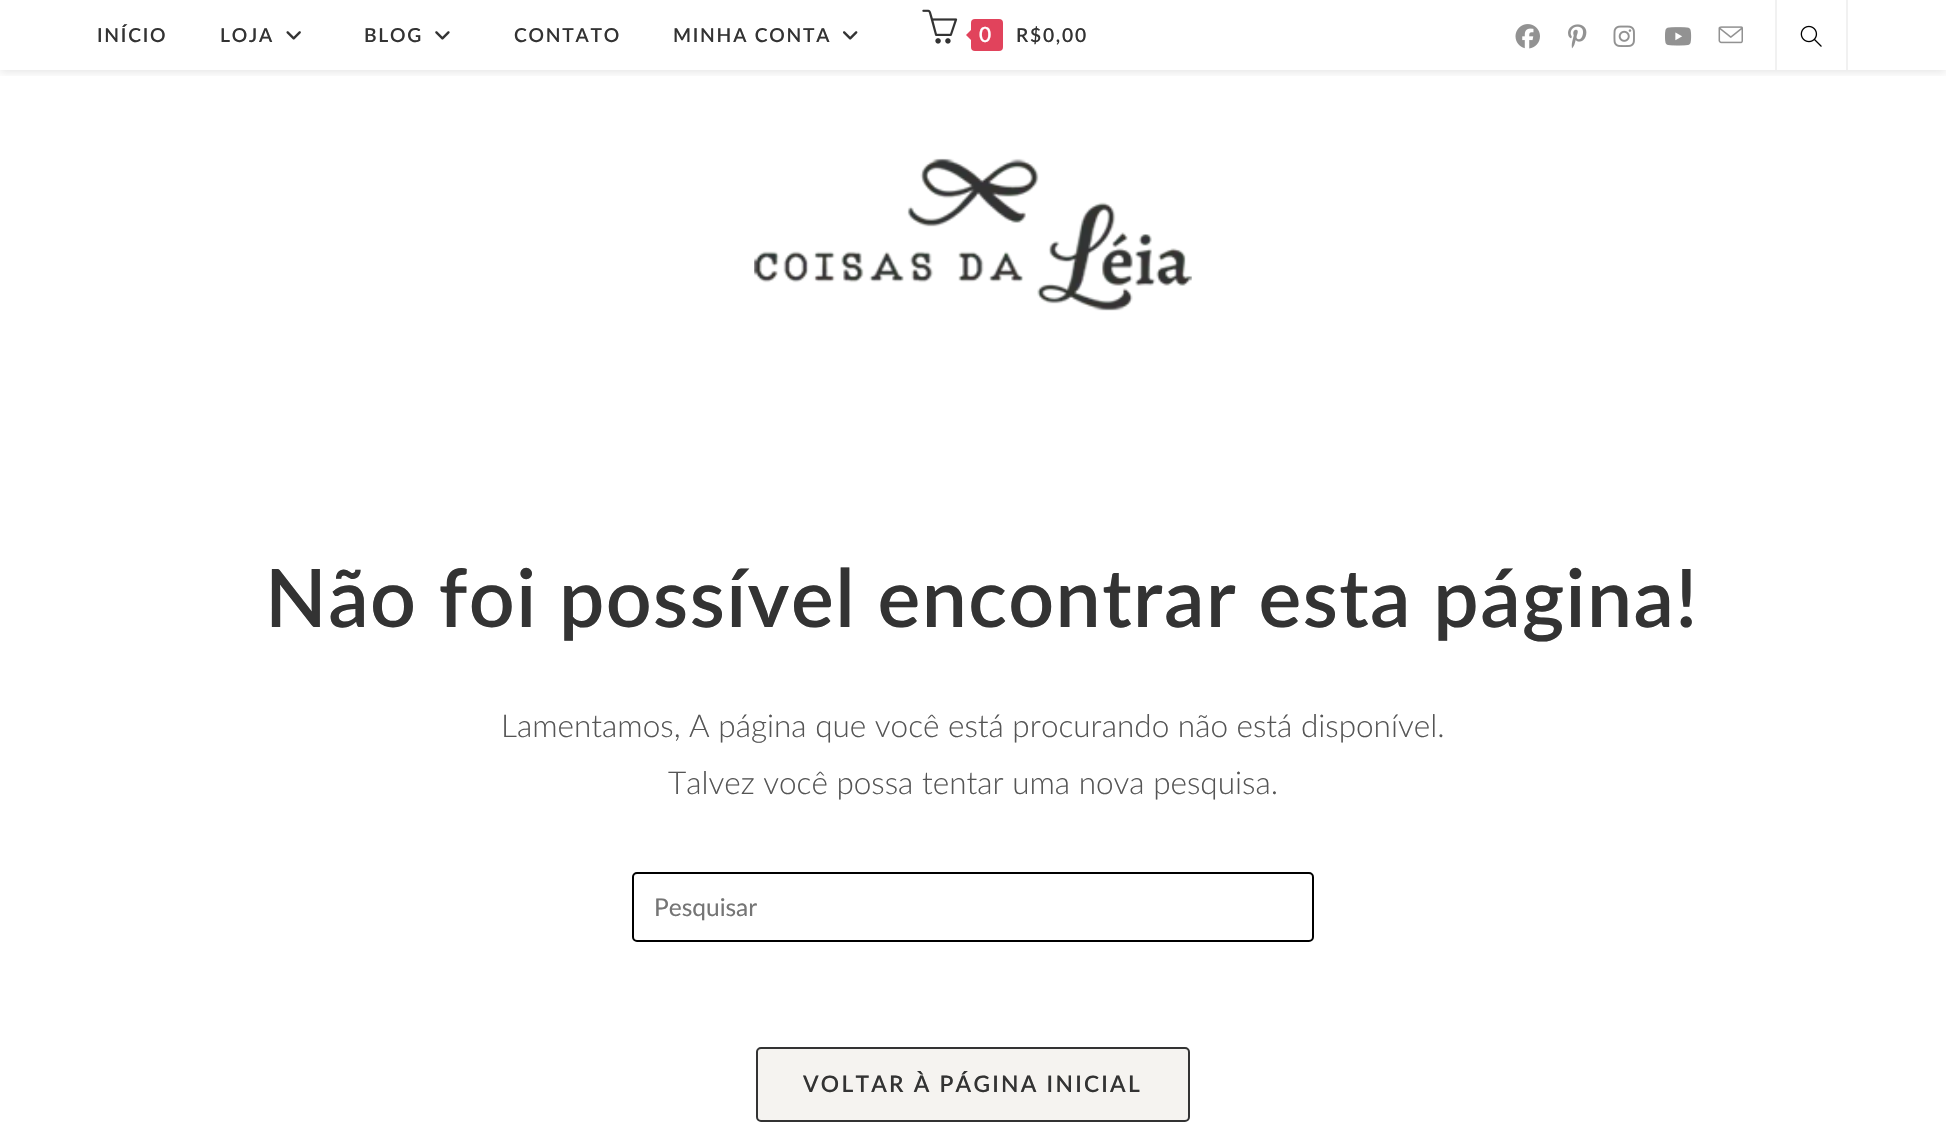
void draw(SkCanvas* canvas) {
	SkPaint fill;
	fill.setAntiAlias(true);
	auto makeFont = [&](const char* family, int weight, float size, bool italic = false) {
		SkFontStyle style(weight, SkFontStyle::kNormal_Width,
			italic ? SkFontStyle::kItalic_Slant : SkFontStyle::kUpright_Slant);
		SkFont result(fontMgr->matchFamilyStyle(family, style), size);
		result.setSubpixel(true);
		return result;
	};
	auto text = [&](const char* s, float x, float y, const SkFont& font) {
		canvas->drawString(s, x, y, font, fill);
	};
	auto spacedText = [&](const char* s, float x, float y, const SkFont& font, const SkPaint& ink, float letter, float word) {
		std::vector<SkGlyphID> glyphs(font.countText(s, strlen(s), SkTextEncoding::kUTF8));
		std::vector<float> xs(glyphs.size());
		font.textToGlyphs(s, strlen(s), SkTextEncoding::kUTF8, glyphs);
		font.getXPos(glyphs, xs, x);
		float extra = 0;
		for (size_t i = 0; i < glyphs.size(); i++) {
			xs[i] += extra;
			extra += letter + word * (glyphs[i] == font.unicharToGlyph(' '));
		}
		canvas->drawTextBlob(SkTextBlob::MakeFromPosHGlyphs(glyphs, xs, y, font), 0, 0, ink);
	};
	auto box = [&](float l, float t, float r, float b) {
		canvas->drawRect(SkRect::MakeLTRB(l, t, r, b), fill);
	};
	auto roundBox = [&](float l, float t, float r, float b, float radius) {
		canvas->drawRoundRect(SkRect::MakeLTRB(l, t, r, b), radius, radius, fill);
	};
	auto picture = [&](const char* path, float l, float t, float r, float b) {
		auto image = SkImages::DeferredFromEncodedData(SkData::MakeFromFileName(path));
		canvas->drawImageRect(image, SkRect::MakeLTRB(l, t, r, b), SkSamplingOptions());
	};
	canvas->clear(0xFFFFFFFF);
	canvas->save();
	canvas->clipRect(SkRect::MakeLTRB(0, 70, 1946, 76));
	fill.setColor(0x1A000000);
	fill.setMaskFilter(SkMaskFilter::MakeBlur(kNormal_SkBlurStyle, 4.5f));
	canvas->drawRect(SkRect::MakeLTRB(0, 2, 1946, 72), fill);
	fill.setMaskFilter(nullptr);
	canvas->restore();
	picture("image0.png", 286, 31, 301, 40);
	picture("image1.png", 435, 31, 450, 40);
	picture("image2.png", 843, 31, 858, 40);
	picture("image3.png", 922, 9, 958, 44);
	fill.setColor(0xFFE1435C);
	roundBox(971, 19, 1003, 51, 4);
	canvas->drawPath(SkPathBuilder().moveTo(975, 26).lineTo(975, 44).lineTo(966, 35).close().detach(), fill);
	picture("image4.png", 1515, 24, 1540, 49);
	picture("image5.png", 1568, 24, 1587, 49);
	picture("image6.png", 1613, 25, 1635, 47);
	picture("image7.png", 1665, 27, 1692, 46);
	picture("image8.png", 1718, 26, 1743, 44);
	fill.setColor(0xFFF1F1F1);
	box(1846, 0, 1848, 70);
	box(1775, 0, 1777, 70);
	picture("image9.png", 1800, 25, 1822, 47);
	picture("image10.png", 754, 158, 1192, 311);
	fill.setStyle(SkPaint::kStroke_Style);
	fill.setStrokeWidth(2);
	fill.setColor(0xFF000000);
	canvas->drawRoundRect(SkRect::MakeLTRB(633, 873, 1313, 941), 4, 4, fill);
	fill.setStyle(SkPaint::kFill_Style);
	fill.setColor(0xFFF5F3F0);
	canvas->drawRoundRect(SkRect::MakeLTRB(757, 1048, 1189, 1121), 4, 4, fill);
	fill.setStyle(SkPaint::kStroke_Style);
	fill.setColor(0xFF333333);
	canvas->drawRoundRect(SkRect::MakeLTRB(757, 1048, 1189, 1121), 4, 4, fill);
	auto font1 = makeFont("Lato", 600, 19.25f);
	fill.setStyle(SkPaint::kFill_Style);
	spacedText("INÍCIO", 97, 42, font1, fill, 1.75f, 0);
	spacedText("LOJA", 220, 42, font1, fill, 1.75f, 0);
	spacedText("BLOG", 364, 42, font1, fill, 1.75f, 0);
	spacedText("CONTATO", 514, 42, font1, fill, 1.75f, 0);
	spacedText("MINHA CONTA", 673, 42, font1, fill, 1.75f, 0);
	auto font2 = makeFont("Lato", 600, 21);
	fill.setColor(0xFFFFFFFF);
	spacedText("0", 979, 42, font2, fill, 1.75f, 0);
	fill.setColor(0xFF333333);
	spacedText("R$0,00", 1016, 42, font1, fill, 1.75f, 0);
	auto font3 = makeFont("Lato", 600, 80.5f);
	spacedText("Não foi possível encontrar esta página!", 265, 627, font3, fill, 1.4f, 0);
	auto font4 = makeFont("Lato", 300, 31.5f);
	fill.setColor(0xFF555555);
	text("Lamentamos, A página que você está procurando não está disponível.", 501, 737, font4);
	text("Talvez você possa tentar uma nova pesquisa.", 668, 794, font4);
	auto font5 = makeFont("Lato", 400, 24.5f);
	fill.setColor(0xFF757575);
	text("Pesquisar", 654, 916, font5);
	auto font6 = makeFont("Lato", 600, 22.75f);
	fill.setColor(0xFF333333);
	spacedText("VOLTAR À PÁGINA INICIAL", 803, 1092, font6, fill, 2.25f, 0);
}
